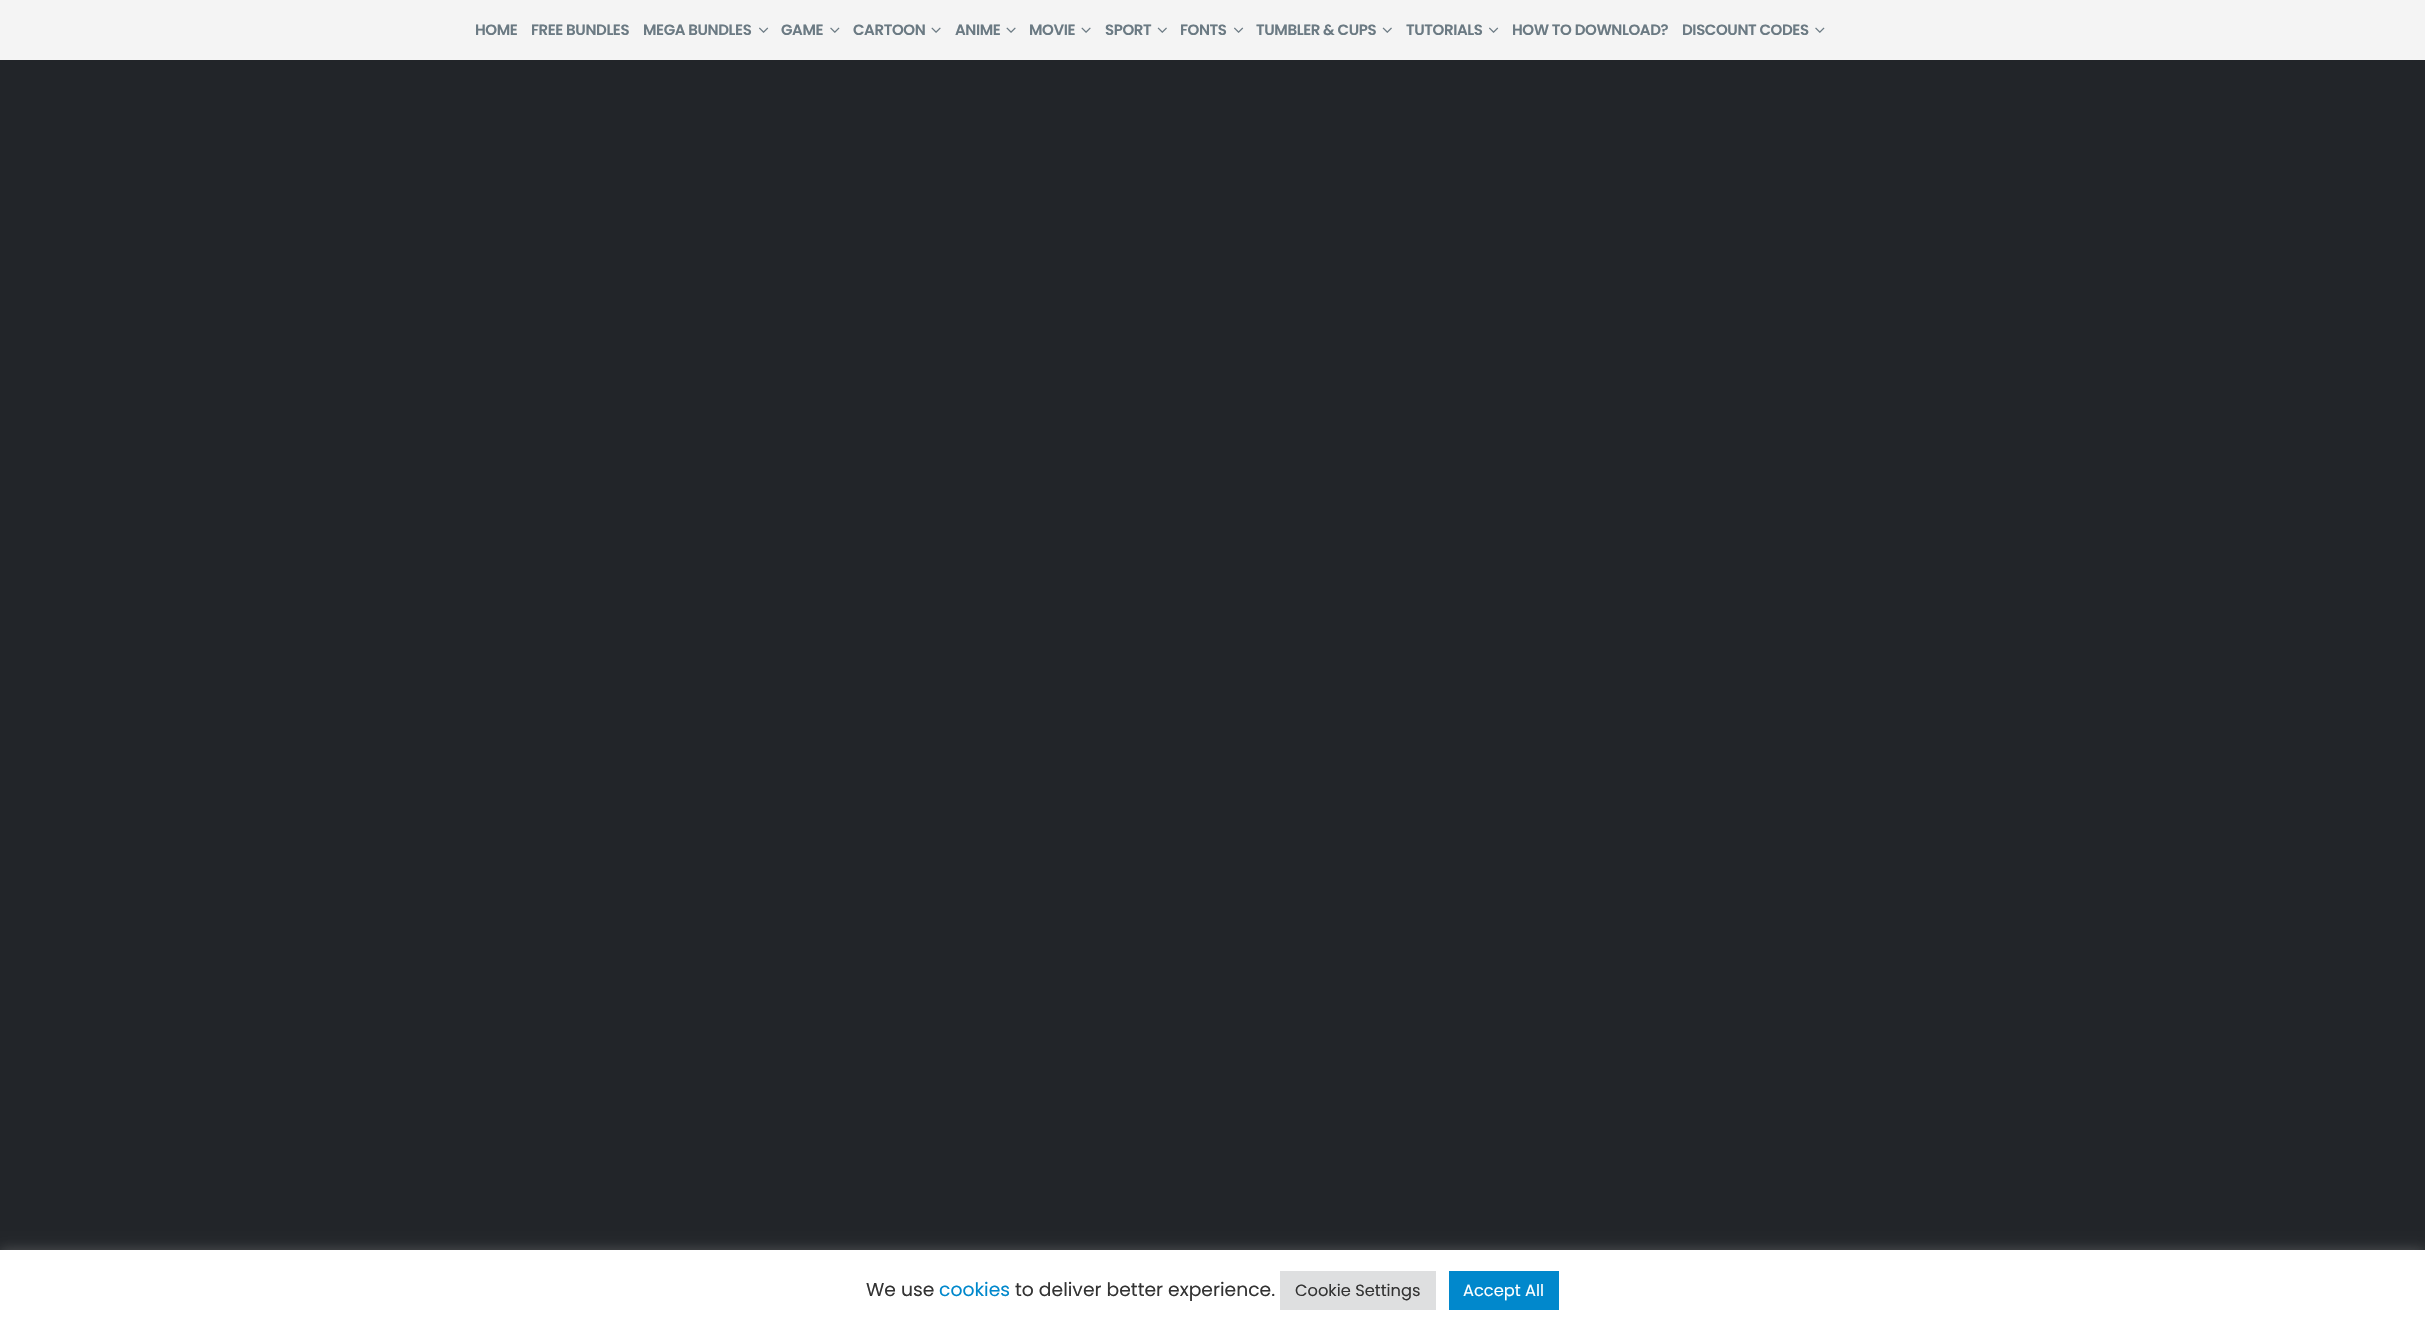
void draw(SkCanvas* canvas) {
	SkPaint fill;
	fill.setAntiAlias(true);
	auto makeFont = [&](const char* family, int weight, float size, bool italic = false) {
		SkFontStyle style(weight, SkFontStyle::kNormal_Width,
			italic ? SkFontStyle::kItalic_Slant : SkFontStyle::kUpright_Slant);
		SkFont result(fontMgr->matchFamilyStyle(family, style), size);
		result.setSubpixel(true);
		return result;
	};
	auto text = [&](const char* s, float x, float y, const SkFont& font) {
		canvas->drawString(s, x, y, font, fill);
	};
	auto spacedText = [&](const char* s, float x, float y, const SkFont& font, const SkPaint& ink, float letter, float word) {
		std::vector<SkGlyphID> glyphs(font.countText(s, strlen(s), SkTextEncoding::kUTF8));
		std::vector<float> xs(glyphs.size());
		font.textToGlyphs(s, strlen(s), SkTextEncoding::kUTF8, glyphs);
		font.getXPos(glyphs, xs, x);
		float extra = 0;
		for (size_t i = 0; i < glyphs.size(); i++) {
			xs[i] += extra;
			extra += letter + word * (glyphs[i] == font.unicharToGlyph(' '));
		}
		canvas->drawTextBlob(SkTextBlob::MakeFromPosHGlyphs(glyphs, xs, y, font), 0, 0, ink);
	};
	auto box = [&](float l, float t, float r, float b) {
		canvas->drawRect(SkRect::MakeLTRB(l, t, r, b), fill);
	};
	auto picture = [&](const char* path, float l, float t, float r, float b) {
		auto image = SkImages::DeferredFromEncodedData(SkData::MakeFromFileName(path));
		canvas->drawImageRect(image, SkRect::MakeLTRB(l, t, r, b), SkSamplingOptions());
	};
	canvas->clear(0xFF222529);
	fill.setColor(0xFFF4F4F4);
	box(0, 0, 2425, 60);
	picture("image0.png", 759, 27, 769, 33);
	picture("image1.png", 830, 27, 840, 33);
	picture("image2.png", 931, 27, 941, 33);
	picture("image2.png", 1006, 27, 1016, 33);
	picture("image2.png", 1081, 27, 1091, 33);
	picture("image3.png", 1157, 27, 1167, 33);
	picture("image0.png", 1234, 27, 1244, 33);
	picture("image3.png", 1382, 27, 1392, 33);
	picture("image0.png", 1489, 27, 1499, 33);
	picture("image1.png", 1815, 27, 1825, 33);
	fill.setColor(0x4DACABAB);
	fill.setMaskFilter(SkMaskFilter::MakeBlur(kNormal_SkBlurStyle, 6));
	canvas->drawRect(SkRect::MakeLTRB(0, 1249, 2425, 1324), fill);
	fill.setMaskFilter(nullptr);
	fill.setColor(0xFFFFFFFF);
	box(0, 1250, 2425, 1324);
	fill.setColor(0xFFDEDFE0);
	box(1280, 1271, 1436, 1310);
	fill.setColor(0xFF0188CC);
	box(1449, 1271, 1559, 1310);
	auto font1 = makeFont("Poppins", 600, 15);
	fill.setColor(0xFF6B7A83);
	spacedText("HOME", 475, 35, font1, fill, -0.4f, 0);
	spacedText("FREE BUNDLES", 531, 35, font1, fill, -0.4f, 0);
	spacedText("MEGA BUNDLES", 643, 35, font1, fill, -0.4f, 0);
	spacedText("GAME", 781, 35, font1, fill, -0.4f, 0);
	spacedText("CARTOON", 853, 35, font1, fill, -0.4f, 0);
	spacedText("ANIME", 955, 35, font1, fill, -0.4f, 0);
	spacedText("MOVIE", 1029, 35, font1, fill, -0.4f, 0);
	spacedText("SPORT", 1105, 35, font1, fill, -0.4f, 0);
	spacedText("FONTS", 1180, 35, font1, fill, -0.4f, 0);
	spacedText("TUMBLER & CUPS", 1256, 35, font1, fill, -0.4f, 0);
	spacedText("TUTORIALS", 1406, 35, font1, fill, -0.4f, 0);
	spacedText("HOW TO DOWNLOAD?", 1512, 35, font1, fill, -0.4f, 0);
	spacedText("DISCOUNT CODES", 1682, 35, font1, fill, -0.4f, 0);
	auto font2 = makeFont("Poppins", 400, 18.75f);
	fill.setColor(0xFF333333);
	text("We use", 866, 1296, font2);
	fill.setColor(0xFF0088CC);
	text("cookies", 939, 1296, font2);
	fill.setColor(0xFF333333);
	text("to deliver better experience.", 1015, 1296, font2);
	auto font3 = makeFont("Poppins", 400, 16.25f);
	text("Cookie Settings", 1295, 1296, font3);
	fill.setColor(0xFFFFFFFF);
	text("Accept All", 1463, 1296, font3);
}
